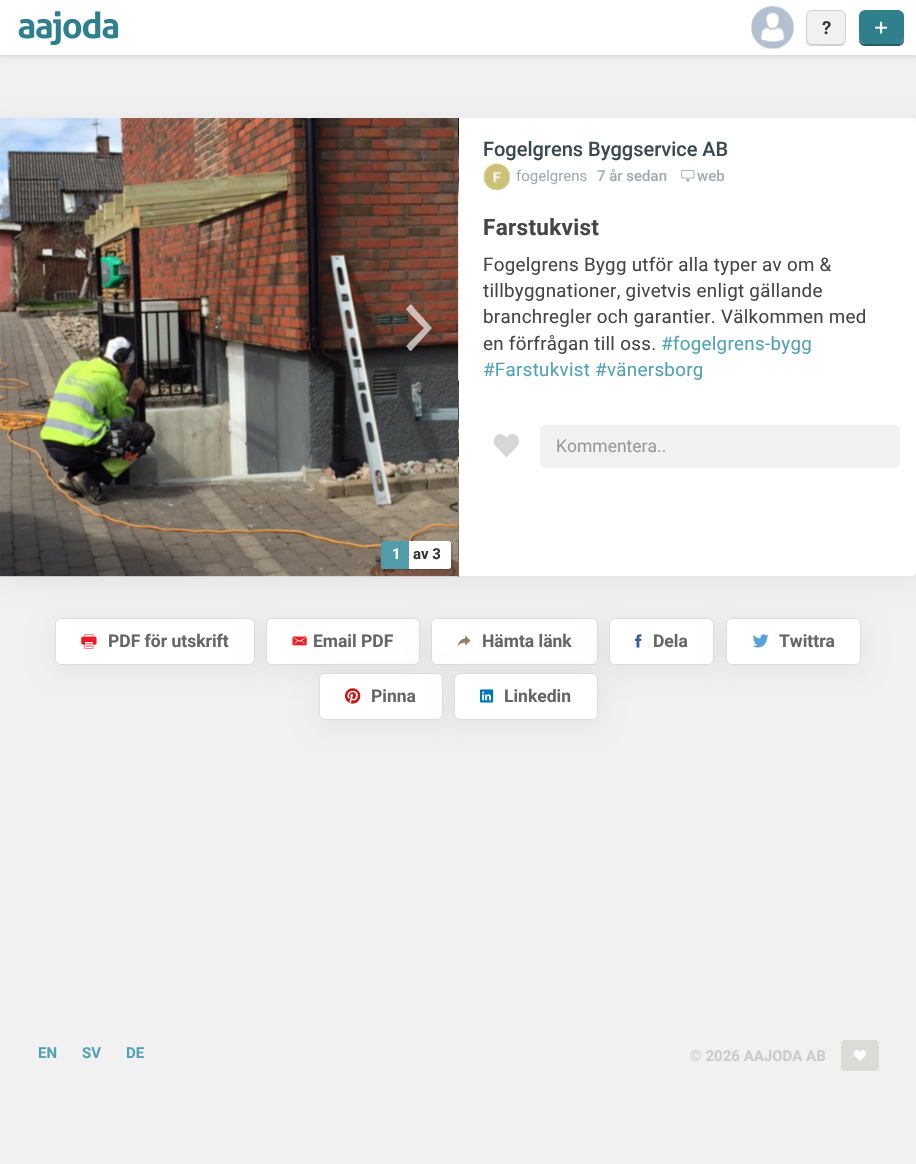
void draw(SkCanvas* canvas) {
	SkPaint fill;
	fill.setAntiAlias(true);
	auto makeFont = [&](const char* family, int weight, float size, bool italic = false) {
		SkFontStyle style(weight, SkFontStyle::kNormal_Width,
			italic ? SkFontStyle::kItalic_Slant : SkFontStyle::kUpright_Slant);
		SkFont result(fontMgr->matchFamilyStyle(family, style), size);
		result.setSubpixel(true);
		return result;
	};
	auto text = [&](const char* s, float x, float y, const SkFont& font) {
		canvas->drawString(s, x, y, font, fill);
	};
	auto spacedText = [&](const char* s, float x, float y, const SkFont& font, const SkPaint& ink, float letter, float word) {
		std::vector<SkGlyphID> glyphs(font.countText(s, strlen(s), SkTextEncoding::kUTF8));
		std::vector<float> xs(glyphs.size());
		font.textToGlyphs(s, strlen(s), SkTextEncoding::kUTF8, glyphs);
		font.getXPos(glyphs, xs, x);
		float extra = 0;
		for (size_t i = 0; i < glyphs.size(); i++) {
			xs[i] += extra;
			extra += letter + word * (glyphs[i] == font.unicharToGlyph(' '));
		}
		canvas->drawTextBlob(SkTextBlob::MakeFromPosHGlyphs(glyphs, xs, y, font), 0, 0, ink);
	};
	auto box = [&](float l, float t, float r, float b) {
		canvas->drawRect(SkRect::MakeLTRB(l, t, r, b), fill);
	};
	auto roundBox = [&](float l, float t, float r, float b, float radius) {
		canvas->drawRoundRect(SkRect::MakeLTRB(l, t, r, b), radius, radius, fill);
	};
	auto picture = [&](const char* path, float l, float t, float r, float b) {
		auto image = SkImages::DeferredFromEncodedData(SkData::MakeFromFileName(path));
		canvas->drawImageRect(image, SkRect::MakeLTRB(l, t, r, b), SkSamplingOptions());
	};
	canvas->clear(0xFFF1F1F1);
	fill.setColor(0x33000000);
	fill.setMaskFilter(SkMaskFilter::MakeBlur(kNormal_SkBlurStyle, 3));
	canvas->drawRect(SkRect::MakeLTRB(0, 0, 916, 55), fill);
	fill.setMaskFilter(nullptr);
	fill.setColor(0xFFFFFFFF);
	box(0, 0, 916, 55);
	picture("image0.png", 18, 11, 119, 45);
	fill.setColor(0xFFEEEEEE);
	canvas->drawCircle(772.5f, 27.5f, 21.5f, fill);
	picture("image1.png", 751, 6, 794, 50);
	fill.setColor(0xFFCCCCCC);
	canvas->drawPath(SkPathBuilder().moveTo(806.5f, 15).lineTo(806, 17).lineTo(806, 40).cubicTo(806, 43.5f, 808.5f, 46, 812, 46).lineTo(840, 46).cubicTo(843, 46, 845.5f, 43.5f, 846, 40.5f).cubicTo(844.5f, 45.5f, 839.5f, 45, 835.5f, 45).lineTo(821.5f, 45).cubicTo(817, 45, 808, 47, 806.5f, 40).close().detach(), fill);
	fill.setColor(0xFFF1F1F1);
	canvas->drawRoundRect(SkRect::MakeLTRB(806.5f, 10.5f, 845.5f, 44.5f), 5.5f, 5.5f, fill);
	fill.setStyle(SkPaint::kStroke_Style);
	fill.setStrokeWidth(1);
	fill.setColor(0xFFCFCFCF);
	canvas->drawRoundRect(SkRect::MakeLTRB(806.5f, 10.5f, 845.5f, 44.5f), 5.5f, 5.5f, fill);
	picture("image2.png", 822, 21, 831, 35);
	fill.setStyle(SkPaint::kFill_Style);
	fill.setColor(0xFF235E69);
	canvas->drawPath(SkPathBuilder().moveTo(859, 39).cubicTo(859, 47, 865, 46, 870, 46).lineTo(892, 46).cubicTo(897, 46, 903, 47, 904, 41).lineTo(904, 17).lineTo(904, 38).cubicTo(904, 41, 901, 44, 898, 44).lineTo(865, 44).cubicTo(862, 44, 860, 42, 859, 39).close().detach(), fill);
	fill.setColor(0xFF307F8D);
	canvas->drawRoundRect(SkRect::MakeLTRB(859.5f, 10.5f, 903.5f, 43.5f), 5.5f, 5.5f, fill);
	fill.setStyle(SkPaint::kStroke_Style);
	canvas->drawRoundRect(SkRect::MakeLTRB(859.5f, 10.5f, 903.5f, 43.5f), 5.5f, 5.5f, fill);
	picture("image3.png", 875, 21, 888, 34);
	fill.setStyle(SkPaint::kFill_Style);
	fill.setColor(0x0F000000);
	fill.setMaskFilter(SkMaskFilter::MakeBlur(kNormal_SkBlurStyle, 12.5f));
	canvas->drawRoundRect(SkRect::MakeLTRB(55, 623, 255, 670), 6, 6, fill);
	fill.setMaskFilter(nullptr);
	fill.setColor(0xFFFFFFFF);
	canvas->drawRoundRect(SkRect::MakeLTRB(55.5f, 618.5f, 254.5f, 664.5f), 5.5f, 5.5f, fill);
	fill.setStyle(SkPaint::kStroke_Style);
	fill.setColor(0xFFDDDDDD);
	canvas->drawRoundRect(SkRect::MakeLTRB(55.5f, 618.5f, 254.5f, 664.5f), 5.5f, 5.5f, fill);
	fill.setStyle(SkPaint::kFill_Style);
	fill.setColor(0x0F000000);
	fill.setMaskFilter(SkMaskFilter::MakeBlur(kNormal_SkBlurStyle, 12.5f));
	canvas->drawRoundRect(SkRect::MakeLTRB(266, 623, 420, 670), 6, 6, fill);
	fill.setMaskFilter(nullptr);
	fill.setColor(0xFFFFFFFF);
	canvas->drawRoundRect(SkRect::MakeLTRB(266.5f, 618.5f, 419.5f, 664.5f), 5.5f, 5.5f, fill);
	fill.setStyle(SkPaint::kStroke_Style);
	fill.setColor(0xFFDDDDDD);
	canvas->drawRoundRect(SkRect::MakeLTRB(266.5f, 618.5f, 419.5f, 664.5f), 5.5f, 5.5f, fill);
	fill.setStyle(SkPaint::kFill_Style);
	fill.setColor(0x0F000000);
	fill.setMaskFilter(SkMaskFilter::MakeBlur(kNormal_SkBlurStyle, 12.5f));
	canvas->drawRoundRect(SkRect::MakeLTRB(431, 623, 598, 670), 6, 6, fill);
	fill.setMaskFilter(nullptr);
	fill.setColor(0xFFFFFFFF);
	canvas->drawRoundRect(SkRect::MakeLTRB(431.5f, 618.5f, 597.5f, 664.5f), 5.5f, 5.5f, fill);
	fill.setStyle(SkPaint::kStroke_Style);
	fill.setColor(0xFFDDDDDD);
	canvas->drawRoundRect(SkRect::MakeLTRB(431.5f, 618.5f, 597.5f, 664.5f), 5.5f, 5.5f, fill);
	fill.setStyle(SkPaint::kFill_Style);
	fill.setColor(0x0F000000);
	fill.setMaskFilter(SkMaskFilter::MakeBlur(kNormal_SkBlurStyle, 12.5f));
	canvas->drawRoundRect(SkRect::MakeLTRB(609, 623, 714, 670), 6, 6, fill);
	fill.setMaskFilter(nullptr);
	fill.setColor(0xFFFFFFFF);
	canvas->drawRoundRect(SkRect::MakeLTRB(609.5f, 618.5f, 713.5f, 664.5f), 5.5f, 5.5f, fill);
	fill.setStyle(SkPaint::kStroke_Style);
	fill.setColor(0xFFDDDDDD);
	canvas->drawRoundRect(SkRect::MakeLTRB(609.5f, 618.5f, 713.5f, 664.5f), 5.5f, 5.5f, fill);
	fill.setStyle(SkPaint::kFill_Style);
	fill.setColor(0x0F000000);
	fill.setMaskFilter(SkMaskFilter::MakeBlur(kNormal_SkBlurStyle, 12.5f));
	canvas->drawRoundRect(SkRect::MakeLTRB(726, 623, 861, 670), 6, 6, fill);
	fill.setMaskFilter(nullptr);
	fill.setColor(0xFFFFFFFF);
	canvas->drawRoundRect(SkRect::MakeLTRB(726.5f, 618.5f, 860.5f, 664.5f), 5.5f, 5.5f, fill);
	fill.setStyle(SkPaint::kStroke_Style);
	fill.setColor(0xFFDDDDDD);
	canvas->drawRoundRect(SkRect::MakeLTRB(726.5f, 618.5f, 860.5f, 664.5f), 5.5f, 5.5f, fill);
	fill.setStyle(SkPaint::kFill_Style);
	fill.setColor(0x0F000000);
	fill.setMaskFilter(SkMaskFilter::MakeBlur(kNormal_SkBlurStyle, 12.5f));
	canvas->drawRoundRect(SkRect::MakeLTRB(0, 123, 916, 581), 5, 5, fill);
	fill.setMaskFilter(nullptr);
	fill.setColor(0xFFFFFFFF);
	canvas->drawPath(SkPathBuilder().moveTo(0, 118).lineTo(911, 118).cubicTo(914, 118, 916, 120, 916, 123).lineTo(916, 571).cubicTo(916, 574, 914, 576, 911, 576).lineTo(0, 576).close().detach(), fill);
	fill.setColor(0xFFEEEEEE);
	canvas->drawCircle(497, 177, 13, fill);
	picture("image4.png", 483, 163, 511, 191);
	picture("image5.png", 681, 170, 695, 182);
	picture("image6.png", 493, 434, 520, 458);
	fill.setColor(0xFFF1F1F1);
	canvas->drawRoundRect(SkRect::MakeLTRB(540.5f, 425.5f, 899.5f, 467.5f), 4.5f, 4.5f, fill);
	fill.setStyle(SkPaint::kStroke_Style);
	canvas->drawRoundRect(SkRect::MakeLTRB(540.5f, 425.5f, 899.5f, 467.5f), 4.5f, 4.5f, fill);
	picture("image7.png", 0, 118, 459, 577);
	picture("image8.png", 458, 118, 459, 577);
	fill.setStyle(SkPaint::kFill_Style);
	fill.setColor(0xA6FFFFFF);
	canvas->drawPath(SkPathBuilder().moveTo(424, 328).cubicTo(421, 325, 406, 310, 406, 309).lineTo(409, 306).cubicTo(411, 303, 412, 305, 415, 309).lineTo(432, 328).lineTo(411, 351).cubicTo(410, 351, 408, 349, 408, 348).cubicTo(405, 346, 407, 346, 409, 343).close().detach(), fill);
	fill.setColor(0x26000000);
	canvas->drawPath(SkPathBuilder().moveTo(384, 569).cubicTo(385, 569, 386, 570, 387, 570).lineTo(450, 570).cubicTo(452, 570, 453, 569, 453, 568).lineTo(453, 546).cubicTo(453, 544, 452, 543, 451, 543).lineTo(451, 559).cubicTo(451, 561, 453, 569, 449, 569).close().detach(), fill);
	fill.setColor(0xFFFFFFFF);
	canvas->drawPath(SkPathBuilder().moveTo(385, 541).lineTo(448.5f, 541).cubicTo(450, 541, 451, 542, 451, 543.5f).lineTo(451, 566.5f).cubicTo(451, 568, 450, 569, 448.5f, 569).lineTo(385, 569).cubicTo(383, 569, 381, 567, 381, 565).lineTo(381, 545).cubicTo(381, 543, 383, 541, 385, 541).close().detach(), fill);
	fill.setColor(0xFF529BA8);
	canvas->drawPath(SkPathBuilder().moveTo(383.5f, 541).lineTo(409, 541).lineTo(409, 569).lineTo(383.5f, 569).cubicTo(382, 569, 381, 568, 381, 566.5f).lineTo(381, 543.5f).cubicTo(381, 542, 382, 541, 383.5f, 541).close().detach(), fill);
	picture("image9.png", 81, 634, 97, 649);
	picture("image10.png", 292, 636, 307, 646);
	picture("image11.png", 457, 635, 471, 647);
	picture("image12.png", 635, 634, 642, 648);
	picture("image13.png", 752, 634, 769, 648);
	fill.setColor(0x0F000000);
	fill.setMaskFilter(SkMaskFilter::MakeBlur(kNormal_SkBlurStyle, 12.5f));
	canvas->drawRoundRect(SkRect::MakeLTRB(319, 678, 443, 725), 6, 6, fill);
	fill.setMaskFilter(nullptr);
	fill.setColor(0xFFFFFFFF);
	canvas->drawRoundRect(SkRect::MakeLTRB(319.5f, 673.5f, 442.5f, 719.5f), 5.5f, 5.5f, fill);
	fill.setStyle(SkPaint::kStroke_Style);
	fill.setColor(0xFFDDDDDD);
	canvas->drawRoundRect(SkRect::MakeLTRB(319.5f, 673.5f, 442.5f, 719.5f), 5.5f, 5.5f, fill);
	picture("image14.png", 345, 688, 361, 704);
	fill.setStyle(SkPaint::kFill_Style);
	fill.setColor(0x0F000000);
	fill.setMaskFilter(SkMaskFilter::MakeBlur(kNormal_SkBlurStyle, 12.5f));
	canvas->drawRoundRect(SkRect::MakeLTRB(454, 678, 598, 725), 6, 6, fill);
	fill.setMaskFilter(nullptr);
	fill.setColor(0xFFFFFFFF);
	canvas->drawRoundRect(SkRect::MakeLTRB(454.5f, 673.5f, 597.5f, 719.5f), 5.5f, 5.5f, fill);
	fill.setStyle(SkPaint::kStroke_Style);
	fill.setColor(0xFFDDDDDD);
	canvas->drawRoundRect(SkRect::MakeLTRB(454.5f, 673.5f, 597.5f, 719.5f), 5.5f, 5.5f, fill);
	picture("image15.png", 480, 689, 494, 703);
	fill.setStyle(SkPaint::kFill_Style);
	fill.setColor(0xFFDCDBD7);
	roundBox(841, 1040, 879, 1071, 4);
	picture("image16.png", 853, 1050, 866, 1061);
	auto font1 = makeFont("Roboto", 500, 20);
	fill.setColor(0xFF3B4A51);
	text("Fogelgrens Byggservice AB", 483, 156, font1);
	auto font2 = makeFont("Roboto", 400, 15);
	fill.setColor(0xFFA6ABB3);
	text("fogelgrens", 516, 181, font2);
	auto font3 = makeFont("Roboto", 500, 15);
	text("7 år sedan", 597, 181, font3);
	text("web", 697, 181, font3);
	auto font4 = makeFont("Roboto", 700, 22.5f);
	fill.setColor(0xFF464646);
	spacedText("Farstukvist", 483, 235, font4, fill, 0.3f, 0);
	auto font5 = makeFont("Roboto", 400, 18.75f);
	spacedText("Fogelgrens Bygg utför alla typer av om &", 483, 271, font5, fill, 0.3f, 0);
	spacedText("tillbyggnationer, givetvis enligt gällande", 483, 297, font5, fill, 0.3f, 0);
	spacedText("branchregler och garantier. Välkommen med", 483, 323, font5, fill, 0.3f, 0);
	spacedText("en förfrågan till oss.", 483, 350, font5, fill, 0.3f, 0);
	fill.setColor(0xFF50A3B3);
	spacedText("#fogelgrens-bygg", 661, 350, font5, fill, 0.3f, 0);
	spacedText("#Farstukvist #vänersborg", 483, 376, font5, fill, 0.3f, 0);
	auto font6 = makeFont("Roboto", 400, 17.5f);
	fill.setColor(0xFF999999);
	text("Kommentera..", 556, 452, font6);
	auto font7 = makeFont("Roboto", 700, 15);
	fill.setColor(0xFFFFFFFF);
	text("1", 392, 559, font7);
	fill.setColor(0xFF333333);
	text("av 3", 413, 559, font7);
	auto font8 = makeFont("Roboto", 700, 17.5f);
	fill.setColor(0xFF666666);
	text("PDF för utskrift", 108, 647, font8);
	text("Email PDF", 313, 647, font8);
	text("Hämta länk", 482, 647, font8);
	text("Dela", 653, 647, font8);
	text("Twittra", 779, 647, font8);
	text("Pinna", 371, 702, font8);
	text("Linkedin", 504, 702, font8);
	fill.setColor(0xFF50A3B3);
	text("EN", 38, 1058, font7);
	text("SV", 82, 1058, font7);
	text("DE", 126, 1058, font7);
	fill.setColor(0xFFCCCCCC);
	text("© 2026 AAJODA AB", 690, 1061, font7);
}
